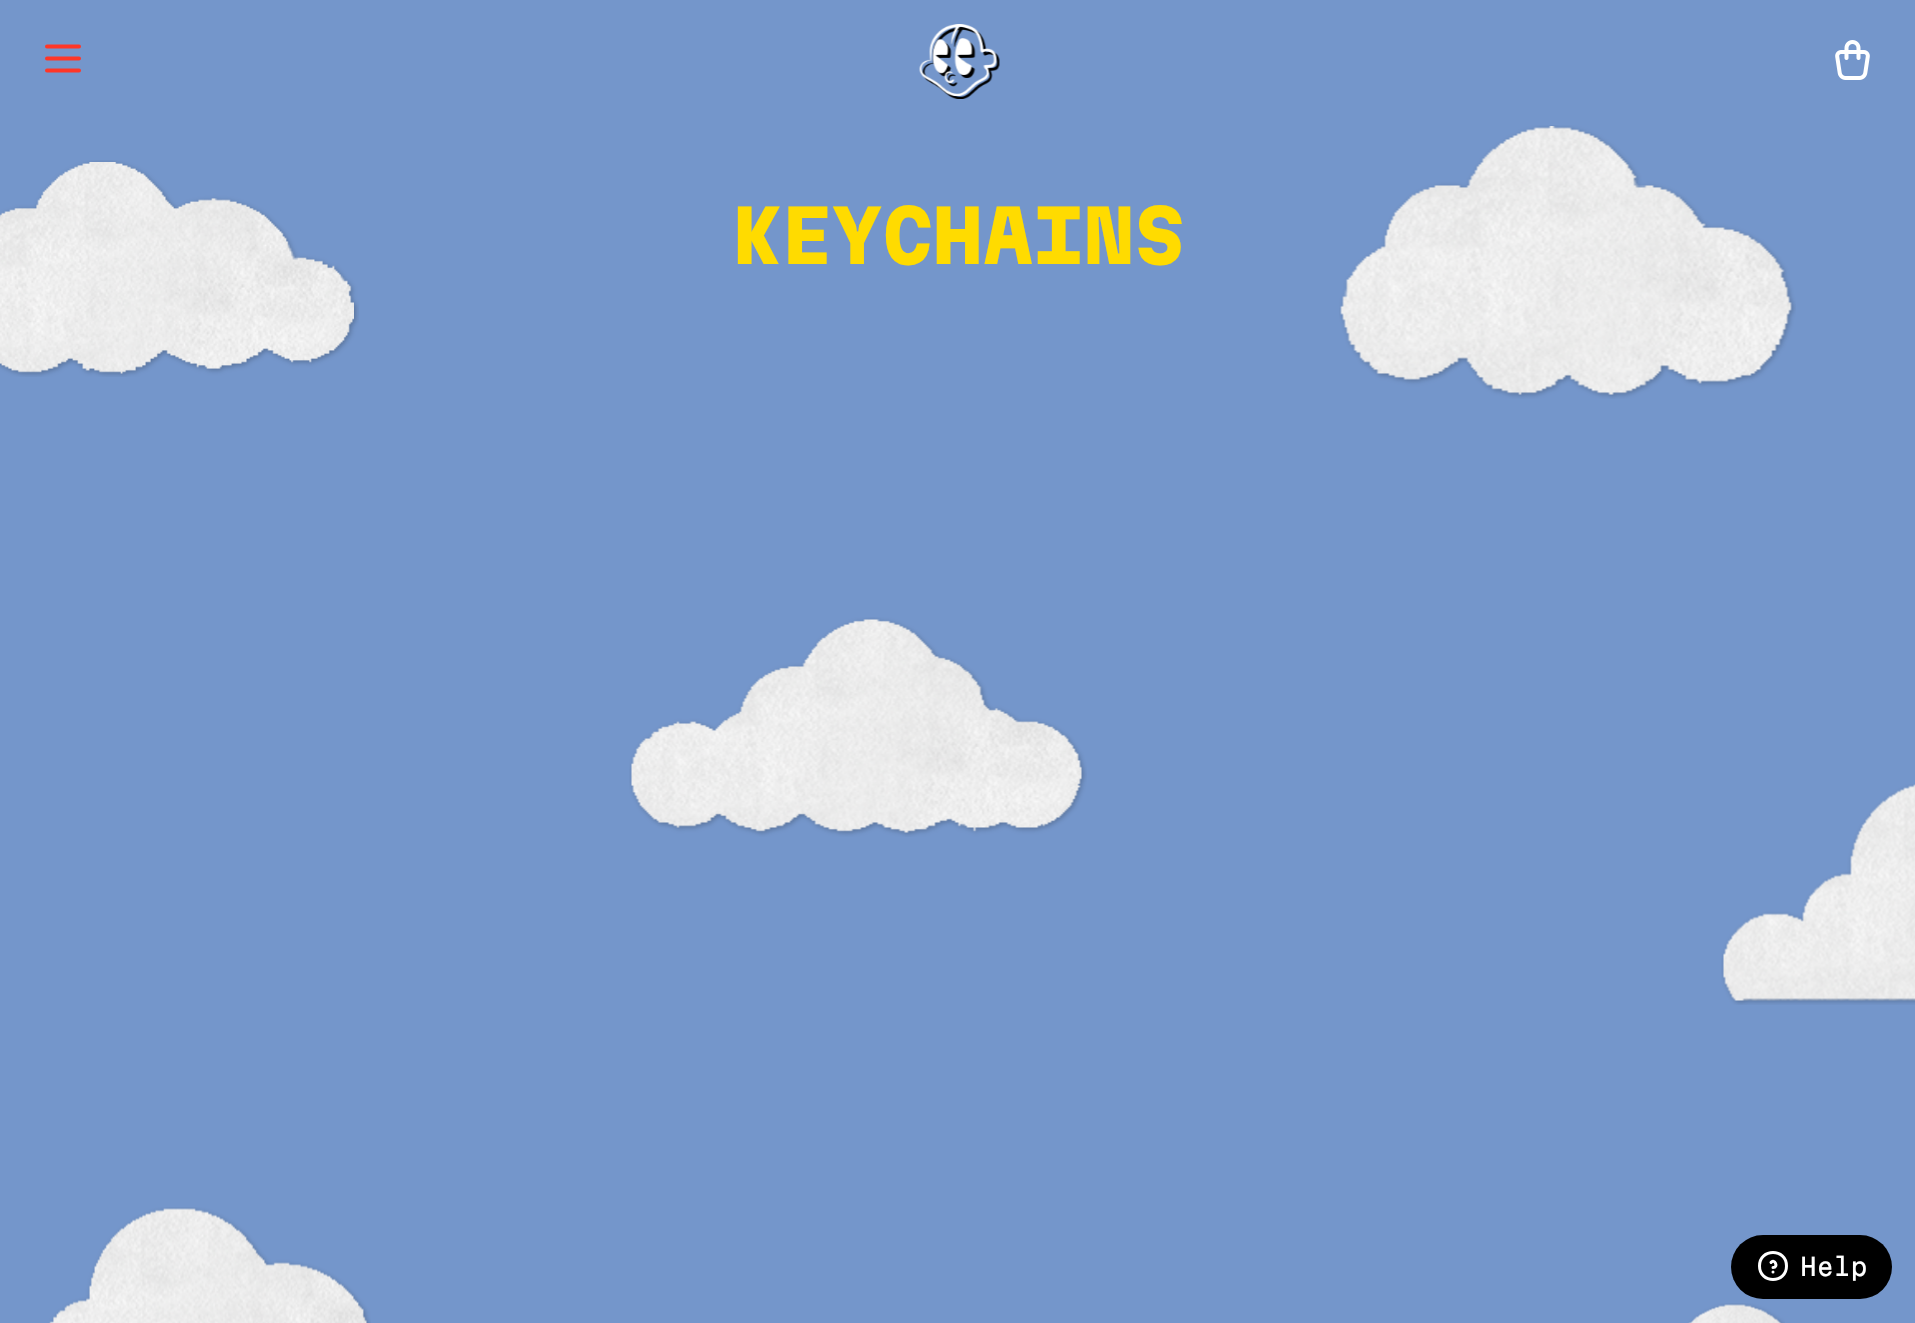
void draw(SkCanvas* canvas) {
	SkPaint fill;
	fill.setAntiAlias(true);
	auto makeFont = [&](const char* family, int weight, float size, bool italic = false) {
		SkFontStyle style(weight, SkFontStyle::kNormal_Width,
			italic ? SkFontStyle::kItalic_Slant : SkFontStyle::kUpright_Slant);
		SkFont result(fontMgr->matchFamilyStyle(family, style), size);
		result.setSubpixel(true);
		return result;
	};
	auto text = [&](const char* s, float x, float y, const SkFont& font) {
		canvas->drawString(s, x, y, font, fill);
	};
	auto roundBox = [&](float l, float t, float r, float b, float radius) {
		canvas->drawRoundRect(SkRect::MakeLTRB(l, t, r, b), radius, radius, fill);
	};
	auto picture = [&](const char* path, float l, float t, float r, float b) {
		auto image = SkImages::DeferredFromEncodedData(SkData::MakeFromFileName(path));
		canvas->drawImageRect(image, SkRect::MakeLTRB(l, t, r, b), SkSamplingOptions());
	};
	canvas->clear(0xFF7496CB);
	fill.setStyle(SkPaint::kStroke_Style);
	fill.setStrokeWidth(4);
	fill.setStrokeCap(SkPaint::kRound_Cap);
	fill.setStrokeJoin(SkPaint::kRound_Join);
	fill.setColor(0xFFFF3627);
	canvas->drawPath(SkPathBuilder().moveTo(47, 46.5f).lineTo(79, 46.5f).moveTo(47, 58.5f).lineTo(79, 58.5f).moveTo(47, 70.5f).lineTo(79, 70.5f).detach(), fill);
	picture("image0.png", 919, 24, 1000, 99);
	picture("image1.png", 1835, 40, 1870, 80);
	picture("image2.png", 0, 160, 359, 377);
	picture("image3.png", 1339, 125, 1796, 399);
	picture("image4.png", 629, 617, 1087, 837);
	picture("image5.png", 1721, 784, 1915, 1005);
	picture("image6.png", 49, 1207, 371, 1323);
	picture("image7.png", 1688, 1303, 1785, 1323);
	fill.setStyle(SkPaint::kFill_Style);
	fill.setColor(0xFF000000);
	roundBox(1731, 1235, 1892, 1299, 32);
	fill.setStyle(SkPaint::kStroke_Style);
	fill.setStrokeWidth(3);
	fill.setColor(0xFFFFFFFF);
	canvas->drawPath(SkPathBuilder().moveTo(1759.5f, 1266).cubicTo(1759.5f, 1284, 1786.5f, 1284, 1786.5f, 1266).cubicTo(1786.5f, 1248, 1759.5f, 1248, 1759.5f, 1266).moveTo(1773, 1272).lineTo(1773, 1272).moveTo(1773, 1267.5f).cubicTo(1779, 1267.5f, 1774.5f, 1258, 1771, 1262.5f).detach(), fill);
	auto font1 = makeFont("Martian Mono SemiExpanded", 800, 72);
	fill.setStyle(SkPaint::kFill_Style);
	fill.setColor(0xFFFFDB00);
	text("KEYCHAINS", 731, 264, font1);
	auto font2 = makeFont("Martian Mono SemiExpanded", 400, 24);
	fill.setColor(0xFFFFFFFF);
	text("Help", 1800, 1276, font2);
}
